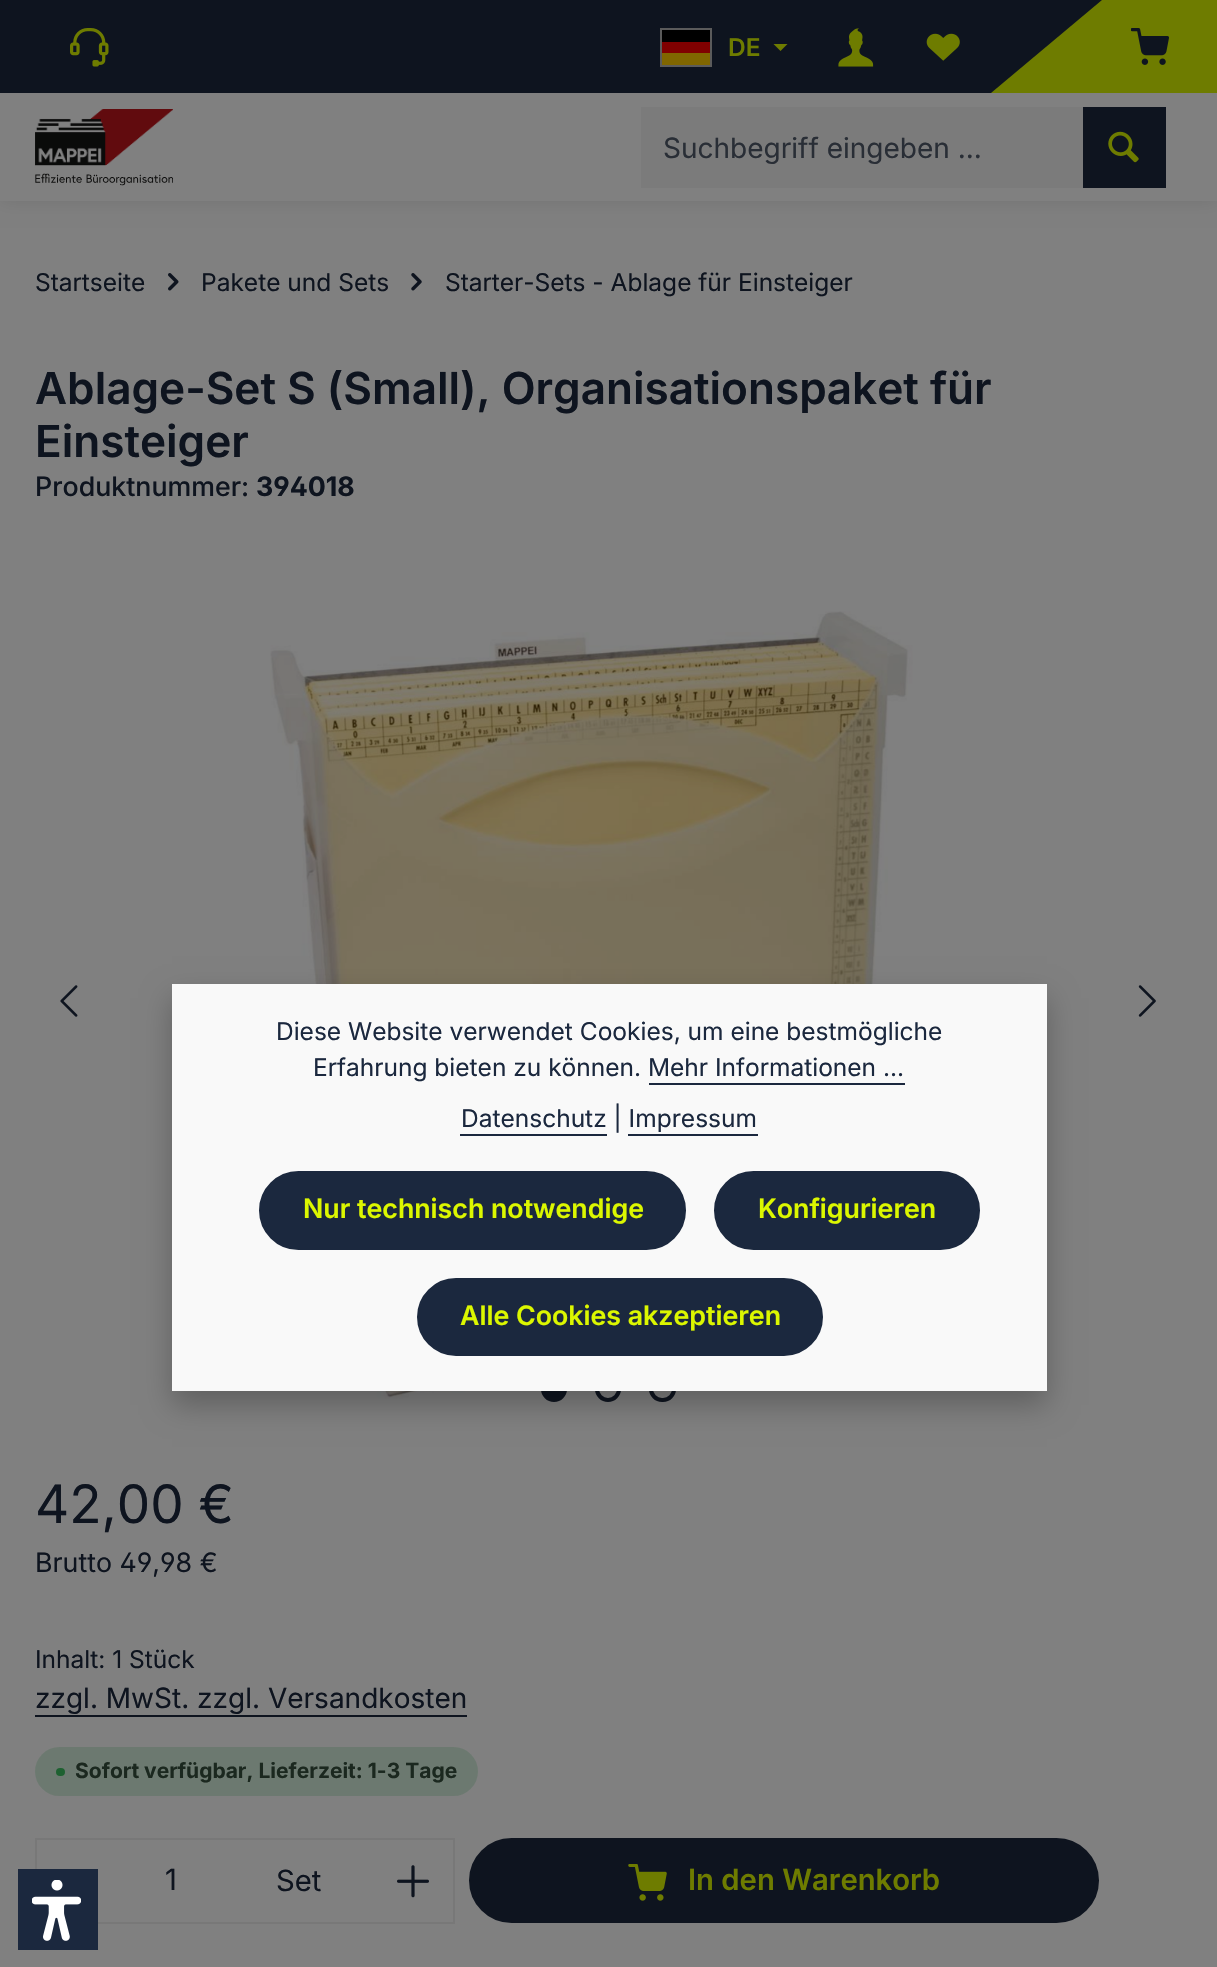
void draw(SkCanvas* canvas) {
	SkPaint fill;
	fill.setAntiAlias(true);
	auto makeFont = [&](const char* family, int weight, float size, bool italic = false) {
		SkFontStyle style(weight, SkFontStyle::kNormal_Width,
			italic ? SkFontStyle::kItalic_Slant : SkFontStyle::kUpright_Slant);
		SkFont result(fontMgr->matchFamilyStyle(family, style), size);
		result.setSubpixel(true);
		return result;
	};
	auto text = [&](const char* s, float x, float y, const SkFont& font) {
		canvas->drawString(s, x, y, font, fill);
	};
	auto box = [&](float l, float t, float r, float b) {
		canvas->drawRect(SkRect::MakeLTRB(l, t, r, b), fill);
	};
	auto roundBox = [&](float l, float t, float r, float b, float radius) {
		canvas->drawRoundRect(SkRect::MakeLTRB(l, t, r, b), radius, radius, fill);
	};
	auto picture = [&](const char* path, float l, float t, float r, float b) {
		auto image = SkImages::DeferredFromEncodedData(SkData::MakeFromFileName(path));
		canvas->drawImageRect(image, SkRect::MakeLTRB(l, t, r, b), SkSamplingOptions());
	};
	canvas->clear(0xFF808080);
	fill.setColor(0x1A000000);
	fill.setMaskFilter(SkMaskFilter::MakeBlur(kNormal_SkBlurStyle, 9));
	canvas->drawRect(SkRect::MakeLTRB(0, 0, 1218, 201), fill);
	fill.setMaskFilter(nullptr);
	fill.setColor(0xFF0E141F);
	box(0, 0, 1102, 93);
	picture("image0.png", 70, 28, 109, 67);
	fill.setColor(0xFF000000);
	box(662, 30, 710, 42);
	fill.setColor(0xFF800000);
	box(662, 42, 710, 53);
	fill.setColor(0xFF806600);
	box(662, 53, 710, 65);
	fill.setStyle(SkPaint::kStroke_Style);
	fill.setStrokeWidth(2);
	fill.setColor(0xFF5B5B5B);
	canvas->drawRect(SkRect::MakeLTRB(661, 29, 711, 66), fill);
	fill.setStyle(SkPaint::kFill_Style);
	fill.setColor(0xFF6E7C00);
	canvas->drawPath(SkPathBuilder().moveTo(773.5f, 44).lineTo(787.5f, 44).lineTo(780.5f, 51).close().detach(), fill);
	picture("image1.png", 838, 28, 874, 67);
	picture("image2.png", 926, 33, 960, 61);
	canvas->drawPath(SkPathBuilder().moveTo(1102, 0).lineTo(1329, 0).lineTo(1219, 93).lineTo(991, 93).close().detach(), fill);
	picture("image3.png", 1131, 28, 1169, 65);
	fill.setColor(0xFF808080);
	box(0, 93, 1217, 201);
	picture("image4.png", 35, 109, 173, 186);
	fill.setColor(0xFF7B7B7B);
	box(643, 109, 1083, 186);
	box(641, 107, 1085, 109);
	box(641, 186, 1085, 188);
	box(641, 107, 643, 187);
	fill.setColor(0xFF0E141F);
	box(1083, 107, 1166, 188);
	picture("image5.png", 1108, 131, 1139, 163);
	picture("image6.png", 168, 273, 179, 291);
	picture("image7.png", 411, 273, 422, 291);
	picture("image8.png", 270, 611, 1012, 1399);
	picture("image9.png", 60, 985, 78, 1017);
	picture("image10.png", 1138, 985, 1156, 1017);
	canvas->drawCircle(554, 1389, 11, fill);
	fill.setStyle(SkPaint::kStroke_Style);
	fill.setStrokeWidth(4);
	canvas->drawCircle(554, 1389, 11, fill);
	canvas->drawCircle(608, 1389, 11, fill);
	canvas->drawRoundRect(SkRect::MakeLTRB(651, 1378, 674, 1400), 11, 11, fill);
	fill.setStyle(SkPaint::kFill_Style);
	box(35, 1715, 467, 1717);
	fill.setColor(0xFF787878);
	box(35, 1838, 455, 1840);
	box(35, 1838, 37, 1869);
	box(98, 1922, 375, 1924);
	box(453, 1838, 455, 1923);
	box(373, 1922, 455, 1924);
	picture("image11.png", 397, 1865, 429, 1898);
	fill.setColor(0xFF0E141F);
	canvas->drawRoundRect(SkRect::MakeLTRB(470, 1839, 1098, 1922), 41.5f, 41.5f, fill);
	fill.setStyle(SkPaint::kStroke_Style);
	fill.setStrokeWidth(2);
	canvas->drawRoundRect(SkRect::MakeLTRB(470, 1839, 1098, 1922), 41.5f, 41.5f, fill);
	picture("image12.png", 628, 1864, 667, 1901);
	fill.setStyle(SkPaint::kFill_Style);
	fill.setColor(0x40000000);
	fill.setMaskFilter(SkMaskFilter::MakeBlur(kNormal_SkBlurStyle, 14));
	canvas->drawRect(SkRect::MakeLTRB(172, 998, 1047, 1405), fill);
	fill.setMaskFilter(nullptr);
	fill.setColor(0xFFF9F9F9);
	box(172, 984, 1047, 1391);
	fill.setColor(0xFF1B283E);
	box(649, 1083, 905, 1085);
	box(460, 1134, 607, 1136);
	box(628, 1134, 758, 1136);
	canvas->drawRoundRect(SkRect::MakeLTRB(260, 1172, 685, 1249), 38.5f, 38.5f, fill);
	fill.setStyle(SkPaint::kStroke_Style);
	canvas->drawRoundRect(SkRect::MakeLTRB(260, 1172, 685, 1249), 38.5f, 38.5f, fill);
	fill.setStyle(SkPaint::kFill_Style);
	canvas->drawRoundRect(SkRect::MakeLTRB(715, 1172, 979, 1249), 38.5f, 38.5f, fill);
	fill.setStyle(SkPaint::kStroke_Style);
	canvas->drawRoundRect(SkRect::MakeLTRB(715, 1172, 979, 1249), 38.5f, 38.5f, fill);
	fill.setStyle(SkPaint::kFill_Style);
	canvas->drawRoundRect(SkRect::MakeLTRB(418, 1279, 822, 1355), 38, 38, fill);
	fill.setStyle(SkPaint::kStroke_Style);
	canvas->drawRoundRect(SkRect::MakeLTRB(418, 1279, 822, 1355), 38, 38, fill);
	fill.setStyle(SkPaint::kFill_Style);
	box(18, 1869, 98, 1950);
	picture("image13.png", 32, 1880, 81, 1941);
	auto font1 = makeFont("Inter", 600, 24.5f);
	fill.setColor(0xFF6E7C00);
	text("DE", 728, 56, font1);
	auto font2 = makeFont("Inter", 400, 28);
	fill.setColor(0xFF292E36);
	text("Suchbegriff eingeben ...", 663, 158, font2);
	auto font3 = makeFont("Inter", 400, 24.5f);
	fill.setColor(0xFF0E141F);
	text("Startseite", 35, 291, font3);
	text("Pakete und Sets", 201, 291, font3);
	text("Starter-Sets - Ablage für Einsteiger", 445, 291, font3);
	auto font4 = makeFont("Inter", 600, 44.1f);
	text("Ablage-Set S (Small), Organisationspaket für", 35, 404, font4);
	text("Einsteiger", 35, 457, font4);
	auto font5 = makeFont("Inter", 500, 26.75f);
	text("Produktnummer:", 35, 496, font5);
	auto font6 = makeFont("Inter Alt", 700, 26.75f);
	text("394018", 256, 496, font6);
	auto font7 = makeFont("Inter", 400, 53);
	text("42,00 €", 35, 1523, font7);
	auto font8 = makeFont("Inter Alt", 400, 26.75f);
	text("Brutto 49,98 €", 35, 1572, font8);
	text("Inhalt: 1 Stück", 35, 1668, font3);
	text("zzgl. MwSt. zzgl. Versandkosten", 35, 1708, font2);
	auto font9 = makeFont("Inter", 700, 21);
	fill.setColor(0xFF1A1A1A);
	text("Sofort verfügbar, Lieferzeit: 1-3 Tage", 75, 1778, font9);
	fill.setColor(0x331E6131);
	roundBox(35, 1747, 478, 1796, 24.5f);
	fill.setColor(0xFF1E6131);
	roundBox(56, 1768, 65, 1776, 4);
	auto font10 = makeFont("Inter", 400, 29.25f);
	fill.setColor(0xFF0E141F);
	text("1", 165, 1890, font10);
	text("Set", 276, 1891, font10);
	auto font11 = makeFont("Inter", 600, 29.25f);
	fill.setColor(0xFF6E7C00);
	text("In den Warenkorb", 688, 1890, font11);
	fill.setColor(0xFF1B283E);
	text("Diese Website verwendet Cookies, um eine bestmögliche", 276, 1040, font3);
	text("Erfahrung bieten zu können. Mehr Informationen ...", 313, 1076, font3);
	text("Datenschutz | Impressum", 461, 1127, font3);
	auto font12 = makeFont("Inter", 600, 26.75f);
	fill.setColor(0xFFDCF700);
	text("Nur technisch notwendige", 303, 1218, font12);
	text("Konfigurieren", 758, 1218, font12);
	text("Alle Cookies akzeptieren", 460, 1325, font12);
}
